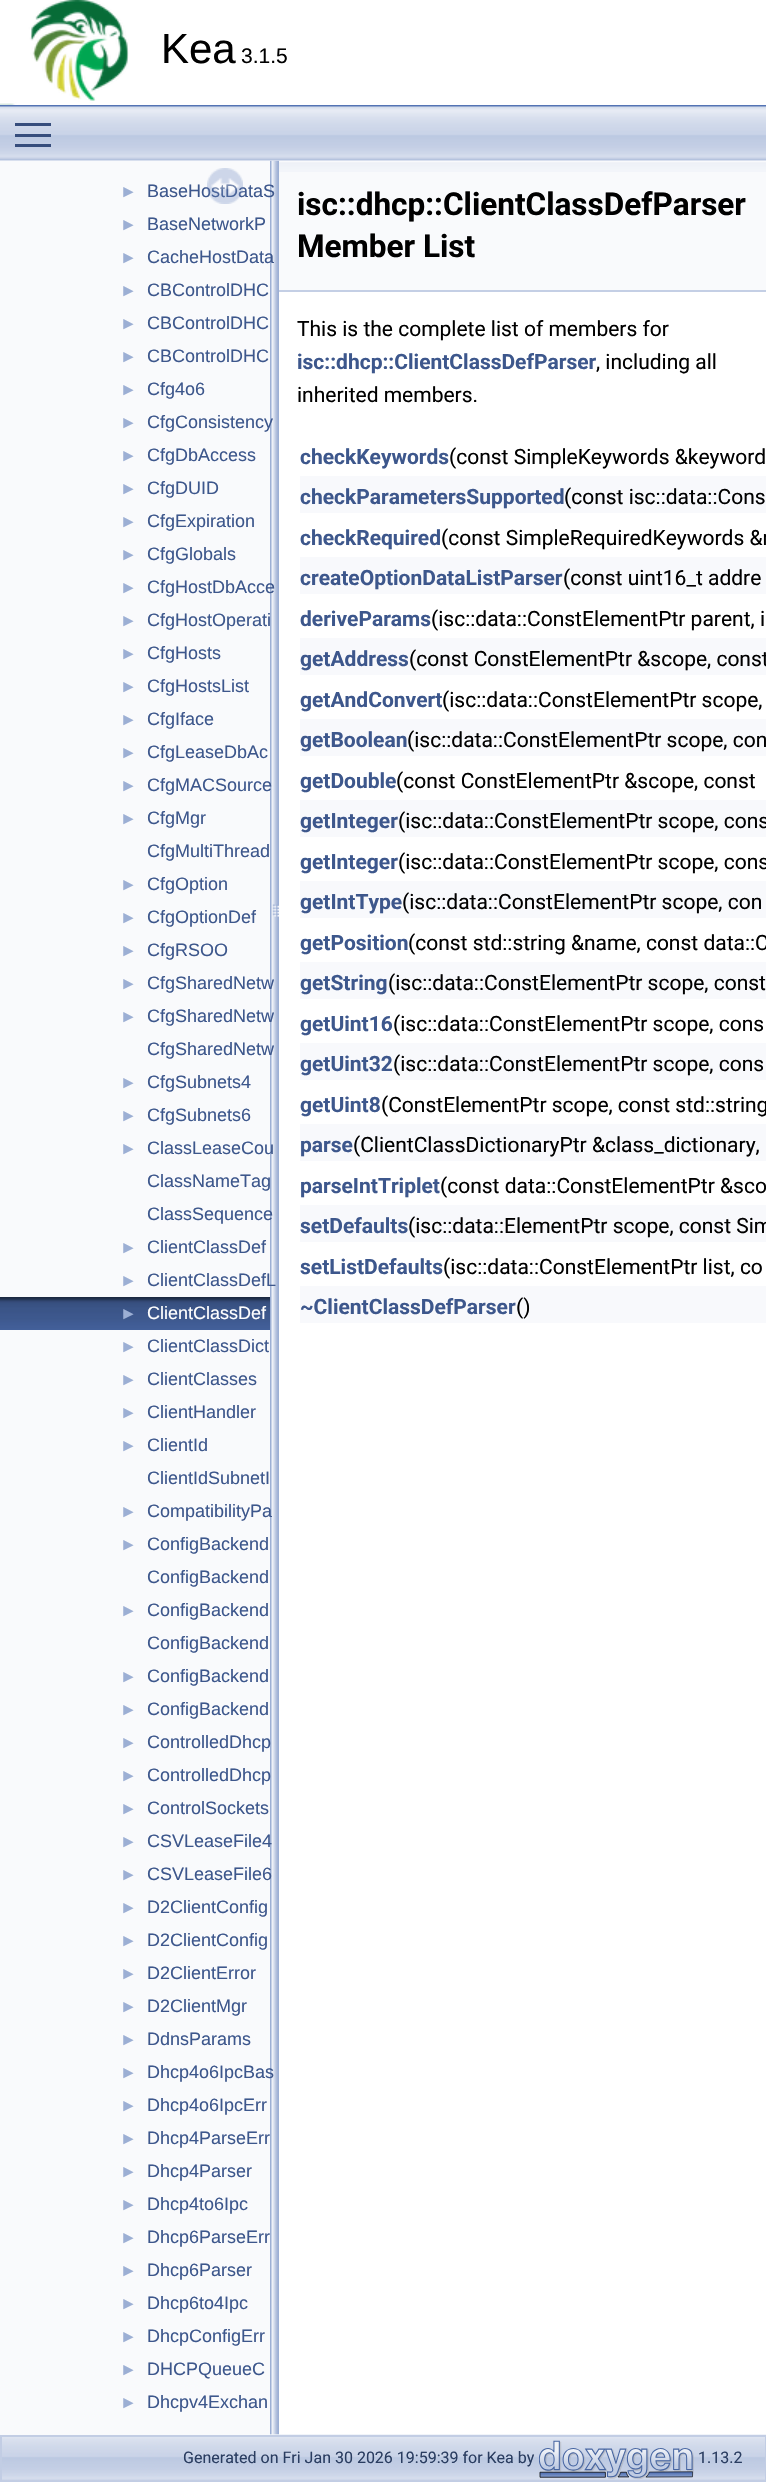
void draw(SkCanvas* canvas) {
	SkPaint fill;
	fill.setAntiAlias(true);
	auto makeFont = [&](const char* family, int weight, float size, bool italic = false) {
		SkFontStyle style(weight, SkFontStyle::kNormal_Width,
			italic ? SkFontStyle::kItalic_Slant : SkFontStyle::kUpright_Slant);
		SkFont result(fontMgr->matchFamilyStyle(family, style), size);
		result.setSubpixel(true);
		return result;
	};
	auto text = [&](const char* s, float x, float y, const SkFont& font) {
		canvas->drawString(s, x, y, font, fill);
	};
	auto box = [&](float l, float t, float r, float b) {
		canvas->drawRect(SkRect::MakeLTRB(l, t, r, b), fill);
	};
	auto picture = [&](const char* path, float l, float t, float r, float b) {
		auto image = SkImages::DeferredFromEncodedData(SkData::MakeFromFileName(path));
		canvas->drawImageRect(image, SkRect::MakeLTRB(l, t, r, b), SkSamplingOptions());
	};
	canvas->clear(0xFFFFFFFF);
	fill.setColor(0xFF5373B4);
	box(0, 105, 766, 107);
	picture("image0.png", 0, 0, 129, 105);
	picture("image6.png", 2, 2434, 766, 2481);
	picture("image4.png", 270, 160, 279, 2435);
	picture("image1.png", 0, 106, 766, 161);
	fill.setColor(0xFF364D7C);
	box(15, 134, 51, 137);
	box(15, 123, 51, 126);
	box(15, 144, 51, 147);
	fill.setColor(0xFFF9FAFC);
	box(0, 161, 270, 2435);
	picture("image3.png", 0, 1297, 270, 1330);
	box(279, 161, 766, 290);
	picture("image5.png", 279, 162, 766, 172);
	fill.setColor(0xFFC4CFE5);
	box(279, 290, 766, 292);
	fill.setColor(0xFFF8F9FC);
	box(300, 476, 766, 513);
	box(300, 557, 766, 594);
	box(300, 638, 766, 675);
	box(300, 719, 766, 756);
	box(300, 800, 766, 837);
	box(300, 881, 766, 918);
	box(300, 962, 766, 999);
	box(300, 1043, 766, 1080);
	box(300, 1124, 766, 1161);
	box(300, 1205, 766, 1242);
	box(300, 1286, 766, 1323);
	fill.setStyle(SkPaint::kStroke_Style);
	fill.setStrokeWidth(2);
	fill.setColor(0xFFC2CDE4);
	canvas->drawRect(SkRect::MakeLTRB(1, 2436, 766, 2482), fill);
	picture("image7.png", 539, 2440, 694, 2480);
	auto font1 = makeFont("Liberation Sans", 400, 42);
	fill.setStyle(SkPaint::kFill_Style);
	fill.setColor(0xFF000000);
	text("Kea", 161, 63, font1);
	auto font2 = makeFont("Liberation Sans", 400, 21);
	text("3.1.5", 241, 63, font2);
	auto font3 = makeFont("Liberation Sans", 400, 17);
	fill.setColor(0xFF9CAFD4);
	text("►", 120, 197, font3);
	auto font4 = makeFont("Liberation Sans", 400, 18);
	fill.setColor(0xFF3D578C);
	text("BaseHostDataS", 147, 197, font4);
	picture("image2.png", 207, 168, 243, 204);
	fill.setColor(0xFF9CAFD4);
	text("►", 120, 230, font3);
	fill.setColor(0xFF3D578C);
	text("BaseNetworkP", 147, 230, font4);
	fill.setColor(0xFF9CAFD4);
	text("►", 120, 263, font3);
	fill.setColor(0xFF3D578C);
	text("CacheHostData", 147, 263, font4);
	fill.setColor(0xFF9CAFD4);
	text("►", 120, 296, font3);
	fill.setColor(0xFF3D578C);
	text("CBControlDHC", 147, 296, font4);
	fill.setColor(0xFF9CAFD4);
	text("►", 120, 329, font3);
	fill.setColor(0xFF3D578C);
	text("CBControlDHC", 147, 329, font4);
	fill.setColor(0xFF9CAFD4);
	text("►", 120, 362, font3);
	fill.setColor(0xFF3D578C);
	text("CBControlDHC", 147, 362, font4);
	fill.setColor(0xFF9CAFD4);
	text("►", 120, 395, font3);
	fill.setColor(0xFF3D578C);
	text("Cfg4o6", 147, 395, font4);
	fill.setColor(0xFF9CAFD4);
	text("►", 120, 428, font3);
	fill.setColor(0xFF3D578C);
	text("CfgConsistency", 147, 428, font4);
	fill.setColor(0xFF9CAFD4);
	text("►", 120, 461, font3);
	fill.setColor(0xFF3D578C);
	text("CfgDbAccess", 147, 461, font4);
	fill.setColor(0xFF9CAFD4);
	text("►", 120, 494, font3);
	fill.setColor(0xFF3D578C);
	text("CfgDUID", 147, 494, font4);
	fill.setColor(0xFF9CAFD4);
	text("►", 120, 527, font3);
	fill.setColor(0xFF3D578C);
	text("CfgExpiration", 147, 527, font4);
	fill.setColor(0xFF9CAFD4);
	text("►", 120, 560, font3);
	fill.setColor(0xFF3D578C);
	text("CfgGlobals", 147, 560, font4);
	fill.setColor(0xFF9CAFD4);
	text("►", 120, 593, font3);
	fill.setColor(0xFF3D578C);
	text("CfgHostDbAcce", 147, 593, font4);
	fill.setColor(0xFF9CAFD4);
	text("►", 120, 626, font3);
	fill.setColor(0xFF3D578C);
	text("CfgHostOperati", 147, 626, font4);
	fill.setColor(0xFF9CAFD4);
	text("►", 120, 659, font3);
	fill.setColor(0xFF3D578C);
	text("CfgHosts", 147, 659, font4);
	fill.setColor(0xFF9CAFD4);
	text("►", 120, 692, font3);
	fill.setColor(0xFF3D578C);
	text("CfgHostsList", 147, 692, font4);
	fill.setColor(0xFF9CAFD4);
	text("►", 120, 725, font3);
	fill.setColor(0xFF3D578C);
	text("CfgIface", 147, 725, font4);
	fill.setColor(0xFF9CAFD4);
	text("►", 120, 758, font3);
	fill.setColor(0xFF3D578C);
	text("CfgLeaseDbAc", 147, 758, font4);
	fill.setColor(0xFF9CAFD4);
	text("►", 120, 791, font3);
	fill.setColor(0xFF3D578C);
	text("CfgMACSource", 147, 791, font4);
	fill.setColor(0xFF9CAFD4);
	text("►", 120, 824, font3);
	fill.setColor(0xFF3D578C);
	text("CfgMgr", 147, 824, font4);
	text("CfgMultiThread", 147, 857, font4);
	fill.setColor(0xFF9CAFD4);
	text("►", 120, 890, font3);
	fill.setColor(0xFF3D578C);
	text("CfgOption", 147, 890, font4);
	fill.setColor(0xFF9CAFD4);
	text("►", 120, 923, font3);
	fill.setColor(0xFF3D578C);
	text("CfgOptionDef", 147, 923, font4);
	fill.setColor(0xFF9CAFD4);
	text("►", 120, 956, font3);
	fill.setColor(0xFF3D578C);
	text("CfgRSOO", 147, 956, font4);
	fill.setColor(0xFF9CAFD4);
	text("►", 120, 989, font3);
	fill.setColor(0xFF3D578C);
	text("CfgSharedNetw", 147, 989, font4);
	fill.setColor(0xFF9CAFD4);
	text("►", 120, 1022, font3);
	fill.setColor(0xFF3D578C);
	text("CfgSharedNetw", 147, 1022, font4);
	text("CfgSharedNetw", 147, 1055, font4);
	fill.setColor(0xFF9CAFD4);
	text("►", 120, 1088, font3);
	fill.setColor(0xFF3D578C);
	text("CfgSubnets4", 147, 1088, font4);
	fill.setColor(0xFF9CAFD4);
	text("►", 120, 1121, font3);
	fill.setColor(0xFF3D578C);
	text("CfgSubnets6", 147, 1121, font4);
	fill.setColor(0xFF9CAFD4);
	text("►", 120, 1154, font3);
	fill.setColor(0xFF3D578C);
	text("ClassLeaseCou", 147, 1154, font4);
	text("ClassNameTag", 147, 1187, font4);
	text("ClassSequence", 147, 1220, font4);
	fill.setColor(0xFF9CAFD4);
	text("►", 120, 1253, font3);
	fill.setColor(0xFF3D578C);
	text("ClientClassDef", 147, 1253, font4);
	fill.setColor(0xFF9CAFD4);
	text("►", 120, 1286, font3);
	fill.setColor(0xFF3D578C);
	text("ClientClassDefL", 147, 1286, font4);
	fill.setColor(0xFF9CAFD4);
	text("►", 120, 1319, font3);
	fill.setColor(0xFFFFFFFF);
	text("ClientClassDef", 147, 1319, font4);
	fill.setColor(0xFF9CAFD4);
	text("►", 120, 1352, font3);
	fill.setColor(0xFF3D578C);
	text("ClientClassDict", 147, 1352, font4);
	fill.setColor(0xFF9CAFD4);
	text("►", 120, 1385, font3);
	fill.setColor(0xFF3D578C);
	text("ClientClasses", 147, 1385, font4);
	fill.setColor(0xFF9CAFD4);
	text("►", 120, 1418, font3);
	fill.setColor(0xFF3D578C);
	text("ClientHandler", 147, 1418, font4);
	fill.setColor(0xFF9CAFD4);
	text("►", 120, 1451, font3);
	fill.setColor(0xFF3D578C);
	text("ClientId", 147, 1451, font4);
	text("ClientIdSubnetI", 147, 1484, font4);
	fill.setColor(0xFF9CAFD4);
	text("►", 120, 1517, font3);
	fill.setColor(0xFF3D578C);
	text("CompatibilityPa", 147, 1517, font4);
	fill.setColor(0xFF9CAFD4);
	text("►", 120, 1550, font3);
	fill.setColor(0xFF3D578C);
	text("ConfigBackend", 147, 1550, font4);
	text("ConfigBackend", 147, 1583, font4);
	fill.setColor(0xFF9CAFD4);
	text("►", 120, 1616, font3);
	fill.setColor(0xFF3D578C);
	text("ConfigBackend", 147, 1616, font4);
	text("ConfigBackend", 147, 1649, font4);
	fill.setColor(0xFF9CAFD4);
	text("►", 120, 1682, font3);
	fill.setColor(0xFF3D578C);
	text("ConfigBackend", 147, 1682, font4);
	fill.setColor(0xFF9CAFD4);
	text("►", 120, 1715, font3);
	fill.setColor(0xFF3D578C);
	text("ConfigBackend", 147, 1715, font4);
	fill.setColor(0xFF9CAFD4);
	text("►", 120, 1748, font3);
	fill.setColor(0xFF3D578C);
	text("ControlledDhcp", 147, 1748, font4);
	fill.setColor(0xFF9CAFD4);
	text("►", 120, 1781, font3);
	fill.setColor(0xFF3D578C);
	text("ControlledDhcp", 147, 1781, font4);
	fill.setColor(0xFF9CAFD4);
	text("►", 120, 1814, font3);
	fill.setColor(0xFF3D578C);
	text("ControlSockets", 147, 1814, font4);
	fill.setColor(0xFF9CAFD4);
	text("►", 120, 1847, font3);
	fill.setColor(0xFF3D578C);
	text("CSVLeaseFile4", 147, 1847, font4);
	fill.setColor(0xFF9CAFD4);
	text("►", 120, 1880, font3);
	fill.setColor(0xFF3D578C);
	text("CSVLeaseFile6", 147, 1880, font4);
	fill.setColor(0xFF9CAFD4);
	text("►", 120, 1913, font3);
	fill.setColor(0xFF3D578C);
	text("D2ClientConfig", 147, 1913, font4);
	fill.setColor(0xFF9CAFD4);
	text("►", 120, 1946, font3);
	fill.setColor(0xFF3D578C);
	text("D2ClientConfig", 147, 1946, font4);
	fill.setColor(0xFF9CAFD4);
	text("►", 120, 1979, font3);
	fill.setColor(0xFF3D578C);
	text("D2ClientError", 147, 1979, font4);
	fill.setColor(0xFF9CAFD4);
	text("►", 120, 2012, font3);
	fill.setColor(0xFF3D578C);
	text("D2ClientMgr", 147, 2012, font4);
	fill.setColor(0xFF9CAFD4);
	text("►", 120, 2045, font3);
	fill.setColor(0xFF3D578C);
	text("DdnsParams", 147, 2045, font4);
	fill.setColor(0xFF9CAFD4);
	text("►", 120, 2078, font3);
	fill.setColor(0xFF3D578C);
	text("Dhcp4o6IpcBas", 147, 2078, font4);
	fill.setColor(0xFF9CAFD4);
	text("►", 120, 2111, font3);
	fill.setColor(0xFF3D578C);
	text("Dhcp4o6IpcErr", 147, 2111, font4);
	fill.setColor(0xFF9CAFD4);
	text("►", 120, 2144, font3);
	fill.setColor(0xFF3D578C);
	text("Dhcp4ParseErr", 147, 2144, font4);
	fill.setColor(0xFF9CAFD4);
	text("►", 120, 2177, font3);
	fill.setColor(0xFF3D578C);
	text("Dhcp4Parser", 147, 2177, font4);
	fill.setColor(0xFF9CAFD4);
	text("►", 120, 2210, font3);
	fill.setColor(0xFF3D578C);
	text("Dhcp4to6Ipc", 147, 2210, font4);
	fill.setColor(0xFF9CAFD4);
	text("►", 120, 2243, font3);
	fill.setColor(0xFF3D578C);
	text("Dhcp6ParseErr", 147, 2243, font4);
	fill.setColor(0xFF9CAFD4);
	text("►", 120, 2276, font3);
	fill.setColor(0xFF3D578C);
	text("Dhcp6Parser", 147, 2276, font4);
	fill.setColor(0xFF9CAFD4);
	text("►", 120, 2309, font3);
	fill.setColor(0xFF3D578C);
	text("Dhcp6to4Ipc", 147, 2309, font4);
	fill.setColor(0xFF9CAFD4);
	text("►", 120, 2342, font3);
	fill.setColor(0xFF3D578C);
	text("DhcpConfigErr", 147, 2342, font4);
	fill.setColor(0xFF9CAFD4);
	text("►", 120, 2375, font3);
	fill.setColor(0xFF3D578C);
	text("DHCPQueueC", 147, 2375, font4);
	fill.setColor(0xFF9CAFD4);
	text("►", 120, 2408, font3);
	fill.setColor(0xFF3D578C);
	text("Dhcpv4Exchan", 147, 2408, font4);
	auto font5 = makeFont("Roboto", 700, 31.5f);
	fill.setColor(0xFF000000);
	text("isc::dhcp::ClientClassDefParser", 297, 215, font5);
	text("Member List", 297, 257, font5);
	auto font6 = makeFont("Roboto", 400, 21);
	text("This is the complete list of members for", 297, 336, font6);
	auto font7 = makeFont("Roboto", 700, 21);
	fill.setColor(0xFF3D578C);
	text("isc::dhcp::ClientClassDefParser", 297, 369, font7);
	fill.setColor(0xFF000000);
	text(", including all", 596, 369, font6);
	text("inherited members.", 297, 402, font6);
	fill.setColor(0xFF3D578C);
	text("checkKeywords", 300, 464, font7);
	fill.setColor(0xFF000000);
	text("(const SimpleKeywords &keyword", 449, 464, font6);
	fill.setColor(0xFF3D578C);
	text("checkParametersSupported", 300, 504, font7);
	fill.setColor(0xFF000000);
	text("(const isc::data::Cons", 564, 504, font6);
	fill.setColor(0xFF3D578C);
	text("checkRequired", 300, 545, font7);
	fill.setColor(0xFF000000);
	text("(const SimpleRequiredKeywords &r", 441, 545, font6);
	fill.setColor(0xFF3D578C);
	text("createOptionDataListParser", 300, 585, font7);
	fill.setColor(0xFF000000);
	text("(const uint16_t addre", 563, 585, font6);
	fill.setColor(0xFF3D578C);
	text("deriveParams", 300, 626, font7);
	fill.setColor(0xFF000000);
	text("(isc::data::ConstElementPtr parent, i", 431, 626, font6);
	fill.setColor(0xFF3D578C);
	text("getAddress", 300, 666, font7);
	fill.setColor(0xFF000000);
	text("(const ConstElementPtr &scope, const", 409, 666, font6);
	fill.setColor(0xFF3D578C);
	text("getAndConvert", 300, 707, font7);
	fill.setColor(0xFF000000);
	text("(isc::data::ConstElementPtr scope,", 442, 707, font6);
	fill.setColor(0xFF3D578C);
	text("getBoolean", 300, 747, font7);
	fill.setColor(0xFF000000);
	text("(isc::data::ConstElementPtr scope, con", 407, 747, font6);
	fill.setColor(0xFF3D578C);
	text("getDouble", 300, 788, font7);
	fill.setColor(0xFF000000);
	text("(const ConstElementPtr &scope, const", 396, 788, font6);
	fill.setColor(0xFF3D578C);
	text("getInteger", 300, 828, font7);
	fill.setColor(0xFF000000);
	text("(isc::data::ConstElementPtr scope, cons", 398, 828, font6);
	fill.setColor(0xFF3D578C);
	text("getInteger", 300, 869, font7);
	fill.setColor(0xFF000000);
	text("(isc::data::ConstElementPtr scope, cons", 398, 869, font6);
	fill.setColor(0xFF3D578C);
	text("getIntType", 300, 909, font7);
	fill.setColor(0xFF000000);
	text("(isc::data::ConstElementPtr scope, con", 402, 909, font6);
	fill.setColor(0xFF3D578C);
	text("getPosition", 300, 950, font7);
	fill.setColor(0xFF000000);
	text("(const std::string &name, const data::C", 408, 950, font6);
	fill.setColor(0xFF3D578C);
	text("getString", 300, 990, font7);
	fill.setColor(0xFF000000);
	text("(isc::data::ConstElementPtr scope, const", 388, 990, font6);
	fill.setColor(0xFF3D578C);
	text("getUint16", 300, 1031, font7);
	fill.setColor(0xFF000000);
	text("(isc::data::ConstElementPtr scope, cons", 393, 1031, font6);
	fill.setColor(0xFF3D578C);
	text("getUint32", 300, 1071, font7);
	fill.setColor(0xFF000000);
	text("(isc::data::ConstElementPtr scope, cons", 393, 1071, font6);
	fill.setColor(0xFF3D578C);
	text("getUint8", 300, 1112, font7);
	fill.setColor(0xFF000000);
	text("(ConstElementPtr scope, const std::string", 381, 1112, font6);
	fill.setColor(0xFF3D578C);
	text("parse", 300, 1152, font7);
	fill.setColor(0xFF000000);
	text("(ClientClassDictionaryPtr &class_dictionary,", 353, 1152, font6);
	fill.setColor(0xFF3D578C);
	text("parseIntTriplet", 300, 1193, font7);
	fill.setColor(0xFF000000);
	text("(const data::ConstElementPtr &sco", 440, 1193, font6);
	fill.setColor(0xFF3D578C);
	text("setDefaults", 300, 1233, font7);
	fill.setColor(0xFF000000);
	text("(isc::data::ElementPtr scope, const Sim", 408, 1233, font6);
	fill.setColor(0xFF3D578C);
	text("setListDefaults", 300, 1274, font7);
	fill.setColor(0xFF000000);
	text("(isc::data::ConstElementPtr list, co", 443, 1274, font6);
	fill.setColor(0xFF3D578C);
	text("~ClientClassDefParser", 300, 1314, font7);
	fill.setColor(0xFF000000);
	text("()", 516, 1314, font6);
	auto font8 = makeFont("Roboto", 400, 16);
	fill.setColor(0xFF2A3D61);
	text("Generated on Fri Jan 30 2026 19:59:39 for Kea by", 183, 2463, font8);
	text("1.13.2", 698, 2463, font8);
}
